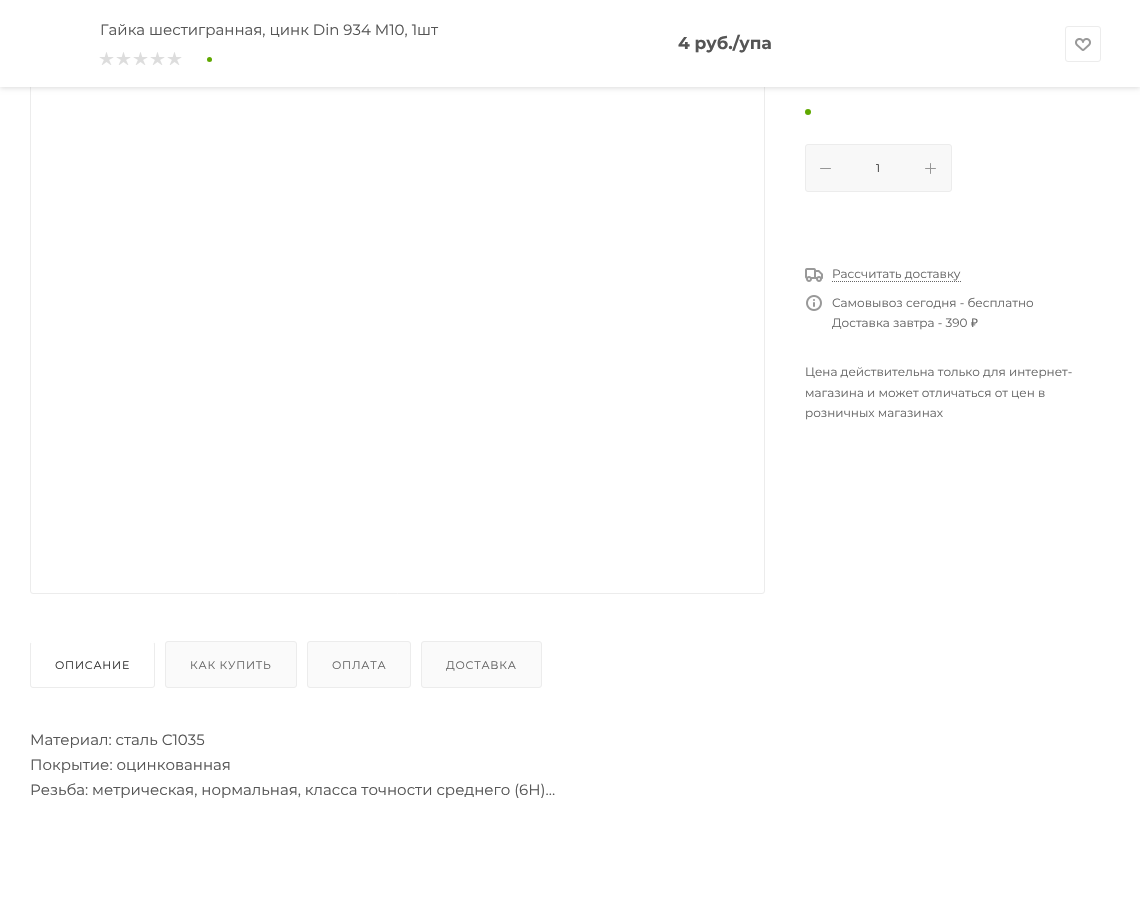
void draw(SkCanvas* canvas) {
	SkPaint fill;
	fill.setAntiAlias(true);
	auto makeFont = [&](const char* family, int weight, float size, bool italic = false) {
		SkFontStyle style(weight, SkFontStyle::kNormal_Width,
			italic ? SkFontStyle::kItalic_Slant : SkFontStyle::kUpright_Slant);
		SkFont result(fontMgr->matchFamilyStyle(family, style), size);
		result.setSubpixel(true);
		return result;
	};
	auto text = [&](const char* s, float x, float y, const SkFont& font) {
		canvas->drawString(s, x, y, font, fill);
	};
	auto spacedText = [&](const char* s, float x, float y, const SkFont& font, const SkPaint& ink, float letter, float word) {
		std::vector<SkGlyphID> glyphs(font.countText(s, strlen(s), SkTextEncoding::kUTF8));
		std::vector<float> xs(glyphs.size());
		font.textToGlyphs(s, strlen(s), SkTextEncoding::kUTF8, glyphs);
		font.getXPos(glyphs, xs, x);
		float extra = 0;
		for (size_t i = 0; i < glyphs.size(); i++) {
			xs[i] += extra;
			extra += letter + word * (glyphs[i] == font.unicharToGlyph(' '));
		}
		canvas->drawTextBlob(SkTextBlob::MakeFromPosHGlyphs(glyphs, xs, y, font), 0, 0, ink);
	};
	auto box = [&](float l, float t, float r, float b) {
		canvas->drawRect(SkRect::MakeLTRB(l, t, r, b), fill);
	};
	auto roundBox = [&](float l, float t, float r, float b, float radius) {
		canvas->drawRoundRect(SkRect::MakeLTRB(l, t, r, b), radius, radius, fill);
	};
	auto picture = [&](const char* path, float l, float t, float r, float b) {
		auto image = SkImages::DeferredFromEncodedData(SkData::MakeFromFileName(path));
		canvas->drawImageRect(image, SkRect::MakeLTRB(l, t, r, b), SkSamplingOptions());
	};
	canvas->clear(0xFFFFFFFF);
	fill.setStyle(SkPaint::kStroke_Style);
	fill.setStrokeWidth(1);
	fill.setColor(0xFFECECEC);
	canvas->drawRoundRect(SkRect::MakeLTRB(30.5f, 10.5f, 764.5f, 593.5f), 2.5f, 2.5f, fill);
	fill.setStyle(SkPaint::kFill_Style);
	fill.setColor(0x24000000);
	fill.setMaskFilter(SkMaskFilter::MakeBlur(kNormal_SkBlurStyle, 2.5f));
	canvas->drawRect(SkRect::MakeLTRB(0, 1, 1140, 88), fill);
	fill.setMaskFilter(nullptr);
	fill.setColor(0xFFFFFFFF);
	box(0, 0, 1140, 87);
	picture("image0.png", 99, 52, 114, 65);
	picture("image0.png", 116, 52, 131, 65);
	picture("image0.png", 133, 52, 148, 65);
	picture("image0.png", 150, 52, 165, 65);
	picture("image0.png", 167, 52, 182, 65);
	fill.setColor(0xFF5FA800);
	canvas->drawCircle(209.5f, 59.5f, 2.5f, fill);
	fill.setStyle(SkPaint::kStroke_Style);
	fill.setColor(0xFFECECEC);
	canvas->drawRoundRect(SkRect::MakeLTRB(1065.5f, 26.5f, 1100.5f, 61.5f), 2.5f, 2.5f, fill);
	picture("image1.png", 1075, 38, 1091, 51);
	fill.setStyle(SkPaint::kFill_Style);
	fill.setColor(0xFF5FA800);
	canvas->drawCircle(808, 112, 3, fill);
	fill.setColor(0xFFF8F8F8);
	canvas->drawRoundRect(SkRect::MakeLTRB(805.5f, 144.5f, 951.5f, 191.5f), 2.5f, 2.5f, fill);
	fill.setStyle(SkPaint::kStroke_Style);
	fill.setColor(0xFFECECEC);
	canvas->drawRoundRect(SkRect::MakeLTRB(805.5f, 144.5f, 951.5f, 191.5f), 2.5f, 2.5f, fill);
	fill.setStyle(SkPaint::kFill_Style);
	fill.setColor(0xFF969696);
	roundBox(820, 168, 831, 169, 0.5f);
	picture("image2.png", 925, 163, 936, 174);
	picture("image3.png", 805, 268, 823, 282);
	fill.setStyle(SkPaint::kStroke_Style);
	fill.setColor(0xFF666666);
	fill.setPathEffect(SkDashPathEffect::Make({{1, 1}}, 0));
	canvas->drawPath(SkPathBuilder().moveTo(832, 281.5f).lineTo(961, 281.5f).detach(), fill);
	fill.setPathEffect(nullptr);
	picture("image4.png", 806, 295, 822, 311);
	fill.setStyle(SkPaint::kFill_Style);
	fill.setColor(0xFFFAFAFA);
	canvas->drawRoundRect(SkRect::MakeLTRB(30.5f, 641.5f, 154.5f, 687.5f), 2.5f, 2.5f, fill);
	fill.setStyle(SkPaint::kStroke_Style);
	fill.setColor(0xFFECECEC);
	canvas->drawRoundRect(SkRect::MakeLTRB(30.5f, 641.5f, 154.5f, 687.5f), 2.5f, 2.5f, fill);
	fill.setStyle(SkPaint::kFill_Style);
	fill.setColor(0xFFFFFFFF);
	roundBox(31, 642, 154, 687, 3);
	canvas->drawPath(SkPathBuilder().moveTo(32, 641).lineTo(153, 641).cubicTo(154, 641, 155, 642, 155, 643).lineTo(30, 643).cubicTo(30, 642, 31, 641, 32, 641).close().detach(), fill);
	fill.setColor(0xFFFAFAFA);
	canvas->drawRoundRect(SkRect::MakeLTRB(165.5f, 641.5f, 296.5f, 687.5f), 2.5f, 2.5f, fill);
	fill.setStyle(SkPaint::kStroke_Style);
	fill.setColor(0xFFECECEC);
	canvas->drawRoundRect(SkRect::MakeLTRB(165.5f, 641.5f, 296.5f, 687.5f), 2.5f, 2.5f, fill);
	fill.setStyle(SkPaint::kFill_Style);
	fill.setColor(0xFFFAFAFA);
	canvas->drawRoundRect(SkRect::MakeLTRB(307.5f, 641.5f, 410.5f, 687.5f), 2.5f, 2.5f, fill);
	fill.setStyle(SkPaint::kStroke_Style);
	fill.setColor(0xFFECECEC);
	canvas->drawRoundRect(SkRect::MakeLTRB(307.5f, 641.5f, 410.5f, 687.5f), 2.5f, 2.5f, fill);
	fill.setStyle(SkPaint::kFill_Style);
	fill.setColor(0xFFFAFAFA);
	canvas->drawRoundRect(SkRect::MakeLTRB(421.5f, 641.5f, 541.5f, 687.5f), 2.5f, 2.5f, fill);
	fill.setStyle(SkPaint::kStroke_Style);
	fill.setColor(0xFFECECEC);
	canvas->drawRoundRect(SkRect::MakeLTRB(421.5f, 641.5f, 541.5f, 687.5f), 2.5f, 2.5f, fill);
	auto font1 = makeFont("Montserrat", 400, 15);
	fill.setStyle(SkPaint::kFill_Style);
	fill.setColor(0xFF555555);
	text("Гайка шестигранная, цинк Din 934 М10, 1шт", 100, 35, font1);
	auto font2 = makeFont("Montserrat", 700, 17);
	text("4 руб./упа", 678, 49, font2);
	auto font3 = makeFont("Montserrat", 400, 11);
	fill.setColor(0xFF333333);
	text("1", 876, 172, font3);
	auto font4 = makeFont("Montserrat", 400, 12);
	fill.setColor(0xFF666666);
	text("Рассчитать доставку", 832, 278, font4);
	text("Самовывоз сегодня - бесплатно", 832, 307, font4);
	text("Доставка завтра - 390", 832, 327, font4);
	auto font5 = makeFont("Noto Sans", 400, 12);
	text("₽", 971, 327, font5);
	text("Цена действительна только для интернет-", 805, 376, font4);
	text("магазина и может отличаться от цен в", 805, 397, font4);
	text("розничных магазинах", 805, 417, font4);
	fill.setColor(0xFF333333);
	spacedText("ОПИСАНИЕ", 55, 669, font3, fill, 0.75f, 0);
	fill.setColor(0xFF666666);
	spacedText("КАК КУПИТЬ", 190, 669, font3, fill, 0.75f, 0);
	spacedText("ОПЛАТА", 332, 669, font3, fill, 0.75f, 0);
	spacedText("ДОСТАВКА", 446, 669, font3, fill, 0.75f, 0);
	fill.setColor(0xFF555555);
	text("Материал: сталь С1035", 30, 745, font1);
	text("Покрытие: оцинкованная", 30, 770, font1);
	text("Резьба: метрическая, нормальная, класса точности среднего (6Н)…", 30, 795, font1);
}
